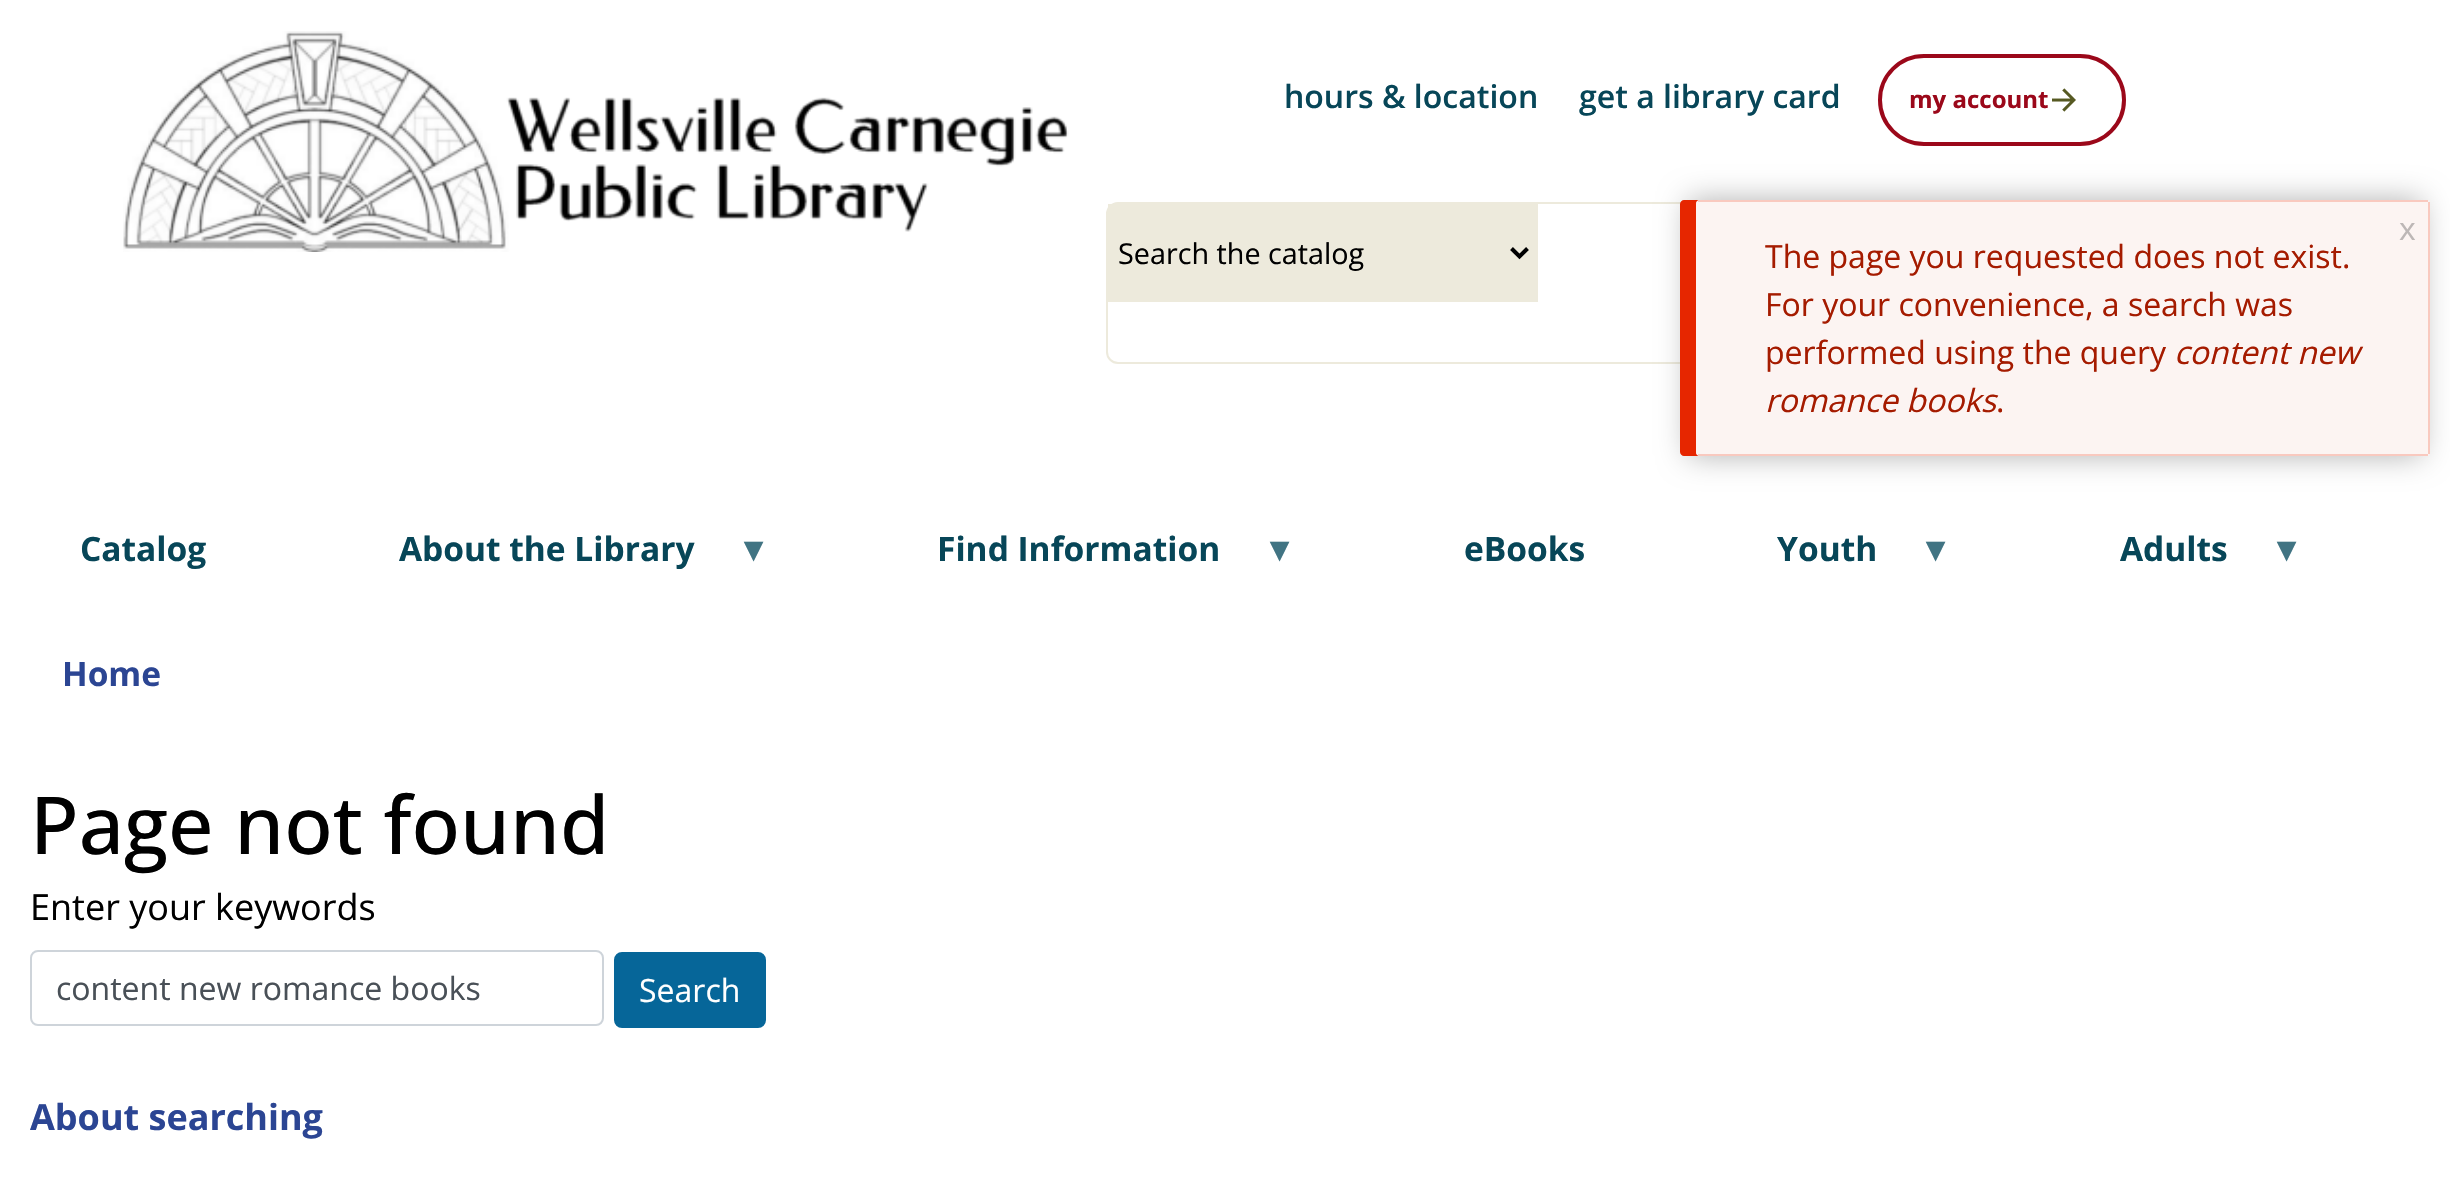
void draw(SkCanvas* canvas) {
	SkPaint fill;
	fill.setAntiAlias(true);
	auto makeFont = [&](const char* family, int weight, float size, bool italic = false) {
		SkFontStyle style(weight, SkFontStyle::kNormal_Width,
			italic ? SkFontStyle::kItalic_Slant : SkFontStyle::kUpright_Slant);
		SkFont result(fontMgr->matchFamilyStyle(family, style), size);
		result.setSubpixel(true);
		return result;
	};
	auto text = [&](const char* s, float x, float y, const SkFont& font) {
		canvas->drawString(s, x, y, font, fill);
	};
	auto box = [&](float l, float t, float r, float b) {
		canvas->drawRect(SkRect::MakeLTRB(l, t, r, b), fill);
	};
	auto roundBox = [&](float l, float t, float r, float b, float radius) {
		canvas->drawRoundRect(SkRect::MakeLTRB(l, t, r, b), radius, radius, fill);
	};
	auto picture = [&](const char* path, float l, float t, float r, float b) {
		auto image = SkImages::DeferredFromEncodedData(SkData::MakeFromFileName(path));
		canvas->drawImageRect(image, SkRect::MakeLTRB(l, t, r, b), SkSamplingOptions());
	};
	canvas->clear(0xFFFFFFFF);
	picture("image0.png", 123, 31, 1069, 252);
	fill.setStyle(SkPaint::kStroke_Style);
	fill.setStrokeWidth(4);
	fill.setColor(0xFF9B081A);
	canvas->drawRoundRect(SkRect::MakeLTRB(1880, 56, 2124, 144), 44, 44, fill);
	picture("image1.png", 2052, 88, 2076, 112);
	fill.setStrokeWidth(2);
	fill.setColor(0xFFEDEADC);
	canvas->drawRoundRect(SkRect::MakeLTRB(1107, 203, 2299, 363), 11, 11, fill);
	fill.setStyle(SkPaint::kFill_Style);
	box(1108, 204, 1538, 302);
	fill.setStyle(SkPaint::kStroke_Style);
	fill.setStrokeWidth(4);
	fill.setColor(0xFF000000);
	canvas->drawPath(SkPathBuilder().moveTo(1511.5f, 248.5f).lineTo(1519.5f, 256.5f).lineTo(1527.5f, 248.5f).detach(), fill);
	fill.setStyle(SkPaint::kFill_Style);
	fill.setColor(0x4D000000);
	fill.setMaskFilter(SkMaskFilter::MakeBlur(kNormal_SkBlurStyle, 15));
	canvas->drawRoundRect(SkRect::MakeLTRB(1688, 200, 2422, 456), 4, 4, fill);
	fill.setMaskFilter(nullptr);
	fill.setColor(0xFFE62600);
	canvas->drawPath(SkPathBuilder().moveTo(1684, 200).cubicTo(1682, 200, 1680, 202, 1680, 204).lineTo(1680, 452).cubicTo(1680, 454, 1682, 456, 1684, 456).lineTo(1700, 456).cubicTo(1698, 456, 1696, 454, 1696, 452).lineTo(1696, 204).cubicTo(1696, 202, 1698, 200, 1700, 200).close().detach(), fill);
	fill.setColor(0xFFFCF4F2);
	roundBox(1696, 200, 2430, 456, 4);
	fill.setColor(0xFFF9C9BF);
	box(1698, 200, 2428, 202);
	box(2428, 202, 2430, 454);
	box(1698, 454, 2428, 456);
	fill.setStyle(SkPaint::kStroke_Style);
	fill.setStrokeWidth(2);
	fill.setColor(0xFFCED4DA);
	canvas->drawRoundRect(SkRect::MakeLTRB(31, 951, 603, 1025), 7, 7, fill);
	fill.setStyle(SkPaint::kFill_Style);
	fill.setColor(0xFF066699);
	canvas->drawRoundRect(SkRect::MakeLTRB(615, 953, 765, 1027), 7, 7, fill);
	fill.setStyle(SkPaint::kStroke_Style);
	canvas->drawRoundRect(SkRect::MakeLTRB(615, 953, 765, 1027), 7, 7, fill);
	auto font1 = makeFont("Open Sans", 600, 32);
	fill.setStyle(SkPaint::kFill_Style);
	fill.setColor(0xFF074658);
	text("hours & location", 1284, 108, font1);
	text("get a library card", 1579, 108, font1);
	auto font2 = makeFont("Open Sans", 700, 24);
	fill.setColor(0xFF9B081A);
	text("my account", 1909, 108, font2);
	auto font3 = makeFont("Open Sans", 400, 28.75f);
	fill.setColor(0xFF000000);
	text("Search the catalog", 1118, 264, font3);
	auto font4 = makeFont("Open Sans", 700, 33.5f);
	fill.setColor(0xFF074658);
	text("Catalog", 80, 561, font4);
	text("About the Library", 399, 561, font4);
	auto font5 = makeFont("Liberation Sans", 700, 33.5f);
	fill.setColor(0xFF417483);
	text("▼", 737, 561, font5);
	fill.setColor(0xFF074658);
	text("Find Information", 937, 561, font4);
	fill.setColor(0xFF417483);
	text("▼", 1263, 561, font5);
	fill.setColor(0xFF074658);
	text("eBooks", 1464, 561, font4);
	text("Youth", 1777, 561, font4);
	fill.setColor(0xFF417483);
	text("▼", 1919, 561, font5);
	fill.setColor(0xFF074658);
	text("Adults", 2120, 561, font4);
	fill.setColor(0xFF417483);
	text("▼", 2270, 561, font5);
	auto font6 = makeFont("Open Sans", 400, 32);
	fill.setColor(0xFFBDB7B6);
	text("x", 2399, 240, font6);
	fill.setColor(0xFFA51B00);
	text("The page you requested does not exist.", 1765, 268, font6);
	text("For your convenience, a search was", 1765, 316, font6);
	text("performed using the query", 1765, 364, font6);
	auto font7 = makeFont("Open Sans", 400, 32, true);
	text("content new", 2174, 364, font7);
	text("romance books", 1765, 412, font7);
	text(".", 1996, 412, font6);
	fill.setColor(0xFF2B4593);
	text("Home", 62, 686, font4);
	auto font8 = makeFont("Open Sans", 500, 80);
	fill.setColor(0xFF000000);
	text("Page not found", 30, 854, font8);
	auto font9 = makeFont("Open Sans", 400, 36);
	text("Enter your keywords", 30, 920, font9);
	fill.setColor(0xFF495057);
	text("content new romance books", 56, 1000, font6);
	fill.setColor(0xFFFFFFFF);
	text("Search", 639, 1002, font6);
	auto font10 = makeFont("Open Sans", 700, 36);
	fill.setColor(0xFF2B4593);
	text("About searching", 30, 1130, font10);
}
